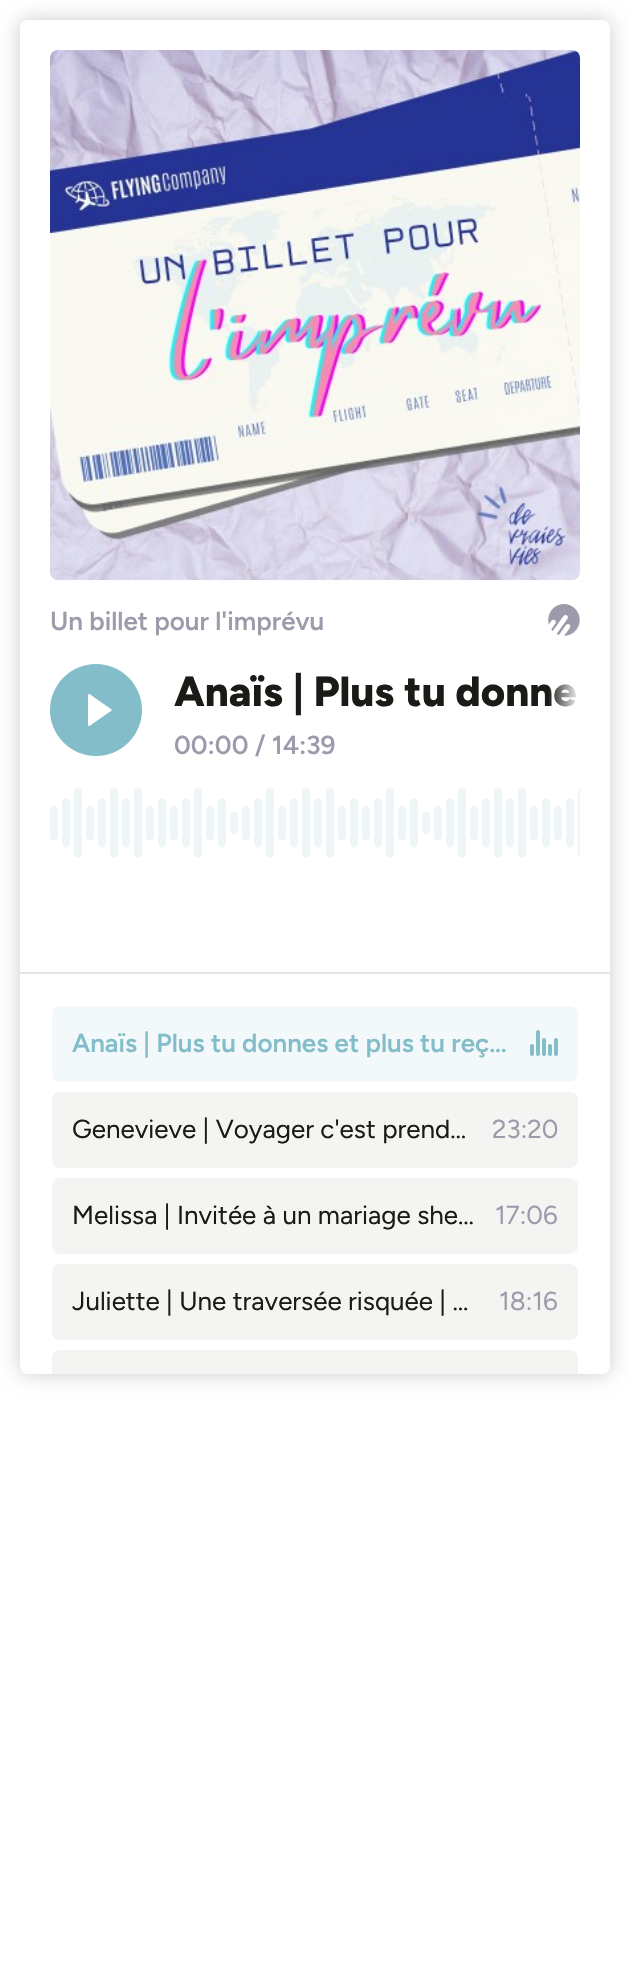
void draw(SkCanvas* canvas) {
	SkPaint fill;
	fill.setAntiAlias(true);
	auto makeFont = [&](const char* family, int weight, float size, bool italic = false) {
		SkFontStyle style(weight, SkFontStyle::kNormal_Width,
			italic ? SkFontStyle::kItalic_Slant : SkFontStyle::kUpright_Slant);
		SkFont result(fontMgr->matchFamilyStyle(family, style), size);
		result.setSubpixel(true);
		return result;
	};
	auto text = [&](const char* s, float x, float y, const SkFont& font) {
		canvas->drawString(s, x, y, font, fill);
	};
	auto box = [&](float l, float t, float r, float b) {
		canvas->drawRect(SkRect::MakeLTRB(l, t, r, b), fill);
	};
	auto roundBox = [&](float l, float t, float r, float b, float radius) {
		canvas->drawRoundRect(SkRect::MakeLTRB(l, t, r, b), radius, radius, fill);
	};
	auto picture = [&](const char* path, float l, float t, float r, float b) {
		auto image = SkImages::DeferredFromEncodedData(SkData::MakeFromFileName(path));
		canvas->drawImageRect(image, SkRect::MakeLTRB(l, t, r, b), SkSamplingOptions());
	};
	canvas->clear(0xFFFFFFFF);
	fill.setColor(0x33000000);
	fill.setMaskFilter(SkMaskFilter::MakeBlur(kNormal_SkBlurStyle, 10));
	canvas->drawRoundRect(SkRect::MakeLTRB(20, 20, 610, 1374), 8, 8, fill);
	fill.setMaskFilter(nullptr);
	fill.setColor(0xFFFFFFFF);
	roundBox(20, 20, 610, 1374, 8);
	picture("image0.png", 50, 50, 580, 580);
	picture("image1.png", 548, 604, 580, 636);
	fill.setColor(0xFF83BDC9);
	canvas->drawCircle(96, 710, 46, fill);
	fill.setColor(0xFFFFFFFF);
	canvas->drawPath(SkPathBuilder().moveTo(88.5f, 694).cubicTo(90, 693.5f, 91.5f, 695.5f, 93, 696.5f).lineTo(108, 707).cubicTo(113, 710.5f, 113, 709.5f, 108, 713).lineTo(89.5f, 726).lineTo(88.5f, 726).lineTo(88, 725).lineTo(88, 695).close().detach(), fill);
	picture("image2.png", 50, 788, 580, 858);
	fill.setColor(0xFFE5E5E5);
	box(20, 972, 610, 974);
	fill.setColor(0xFFF3F8FA);
	roundBox(52, 1006, 578, 1082, 8);
	picture("image3.png", 530, 1030, 558, 1056);
	fill.setColor(0xFFF4F4F3);
	roundBox(52, 1092, 578, 1168, 8);
	roundBox(52, 1178, 578, 1254, 8);
	roundBox(52, 1264, 578, 1340, 8);
	canvas->drawPath(SkPathBuilder().moveTo(60, 1350).lineTo(570, 1350).cubicTo(574.5f, 1350, 578, 1353.5f, 578, 1358).lineTo(578, 1374).lineTo(52, 1374).lineTo(52, 1358).cubicTo(52, 1353.5f, 55.5f, 1350, 60, 1350).close().detach(), fill);
	auto font1 = makeFont("Figtree", 600, 26);
	fill.setColor(0xFF9D9AAB);
	text("Un billet pour l'imprévu", 50, 630, font1);
	auto font2 = makeFont("Figtree", 800, 42);
	fill.setColor(0xFF1B1A17);
	text("Anaïs | Plus tu donne", 174, 706, font2);
	{
		const SkColor colors[] = {0xFFFFFFFF, 0x00FFFFFF};
		const float stops[] = {0, 1};
		const SkPoint ends[] = {{580, 692}, {548, 692}};
		fill.setShader(SkGradientShader::MakeLinear(ends, colors, stops, 2, SkTileMode::kClamp));
		fill.setAlpha(255);
	}
	box(549, 684, 577, 707);
	fill.setShader(nullptr);
	fill.setColor(0xFF9D9AAB);
	text("00:00 / 14:39", 174, 754, font1);
	fill.setColor(0xFF83BDC9);
	text("Anaïs | Plus tu donnes et plus tu reç…", 72, 1052, font1);
	auto font3 = makeFont("Figtree", 400, 26);
	fill.setColor(0xFF1B1A17);
	text("Genevieve | Voyager c'est prend…", 72, 1138, font3);
	fill.setColor(0xFF9D9AAB);
	text("23:20", 492, 1138, font3);
	fill.setColor(0xFF1B1A17);
	text("Melissa | Invitée à un mariage she…", 72, 1224, font3);
	fill.setColor(0xFF9D9AAB);
	text("17:06", 495, 1224, font3);
	fill.setColor(0xFF1B1A17);
	text("Juliette | Une traversée risquée | …", 72, 1310, font3);
	fill.setColor(0xFF9D9AAB);
	text("18:16", 499, 1310, font3);
}
